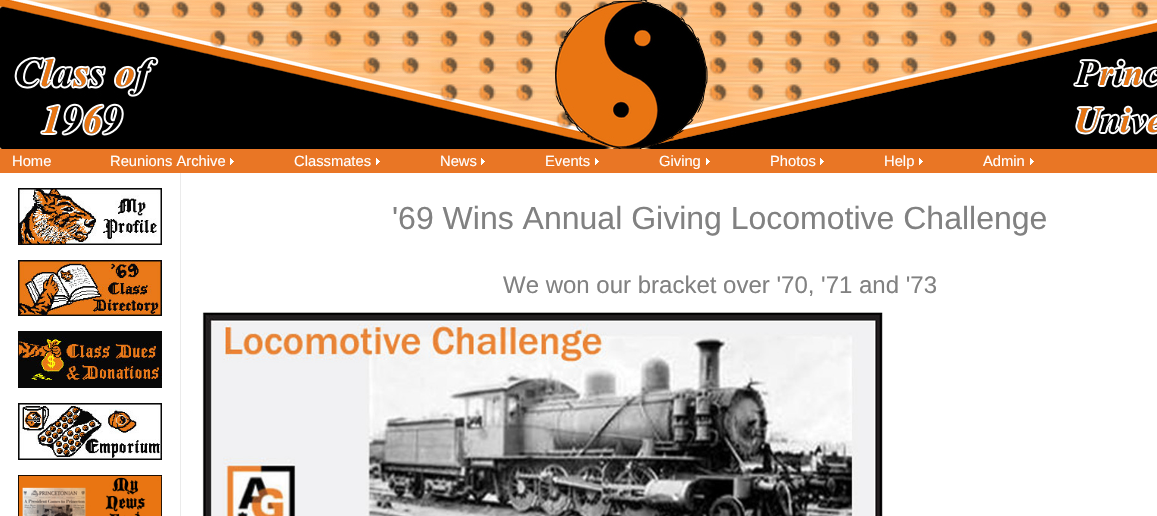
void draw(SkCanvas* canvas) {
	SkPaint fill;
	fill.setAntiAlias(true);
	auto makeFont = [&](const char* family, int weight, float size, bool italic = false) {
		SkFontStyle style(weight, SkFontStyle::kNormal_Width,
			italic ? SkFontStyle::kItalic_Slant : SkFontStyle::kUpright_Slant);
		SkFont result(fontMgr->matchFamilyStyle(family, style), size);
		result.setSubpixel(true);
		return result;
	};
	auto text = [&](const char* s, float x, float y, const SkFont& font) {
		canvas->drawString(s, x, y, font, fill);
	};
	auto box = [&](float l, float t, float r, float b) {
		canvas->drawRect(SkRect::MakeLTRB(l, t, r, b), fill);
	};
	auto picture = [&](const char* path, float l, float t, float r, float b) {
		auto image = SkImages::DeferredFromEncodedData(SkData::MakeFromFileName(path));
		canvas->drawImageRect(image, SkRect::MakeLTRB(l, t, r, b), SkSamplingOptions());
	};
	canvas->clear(0xFFFFFFFF);
	picture("image0.png", 0, 149, 1157, 173);
	picture("image1.png", 0, 0, 1157, 149);
	picture("image2.png", 230, 158, 234, 165);
	picture("image2.png", 376, 158, 380, 165);
	picture("image2.png", 481, 158, 485, 165);
	picture("image2.png", 595, 158, 599, 165);
	picture("image2.png", 706, 158, 710, 165);
	picture("image2.png", 820, 158, 824, 165);
	picture("image2.png", 919, 158, 923, 165);
	picture("image2.png", 1030, 158, 1034, 165);
	fill.setColor(0xFFEBEBEB);
	box(180, 173, 181, 516);
	picture("image3.png", 18, 188, 162, 245);
	picture("image4.png", 18, 260, 162, 316);
	picture("image5.png", 18, 331, 162, 388);
	picture("image6.png", 18, 403, 162, 460);
	picture("image7.png", 18, 475, 162, 516);
	picture("image8.png", 202, 312, 883, 516);
	auto font1 = makeFont("Liberation Sans", 400, 14.75f);
	fill.setColor(0xFFFFFFFF);
	text("Home", 12, 166, font1);
	text("Reunions Archive", 110, 166, font1);
	text("Classmates", 294, 166, font1);
	text("News", 440, 166, font1);
	text("Events", 545, 166, font1);
	text("Giving", 659, 166, font1);
	text("Photos", 770, 166, font1);
	text("Help", 884, 166, font1);
	text("Admin", 983, 166, font1);
	auto font2 = makeFont("Liberation Sans", 400, 32);
	fill.setColor(0xFF818181);
	text("'69 Wins Annual Giving Locomotive Challenge", 392, 229, font2);
	auto font3 = makeFont("Liberation Sans", 400, 24);
	text("We won our bracket over '70, '71 and '73", 503, 293, font3);
}
